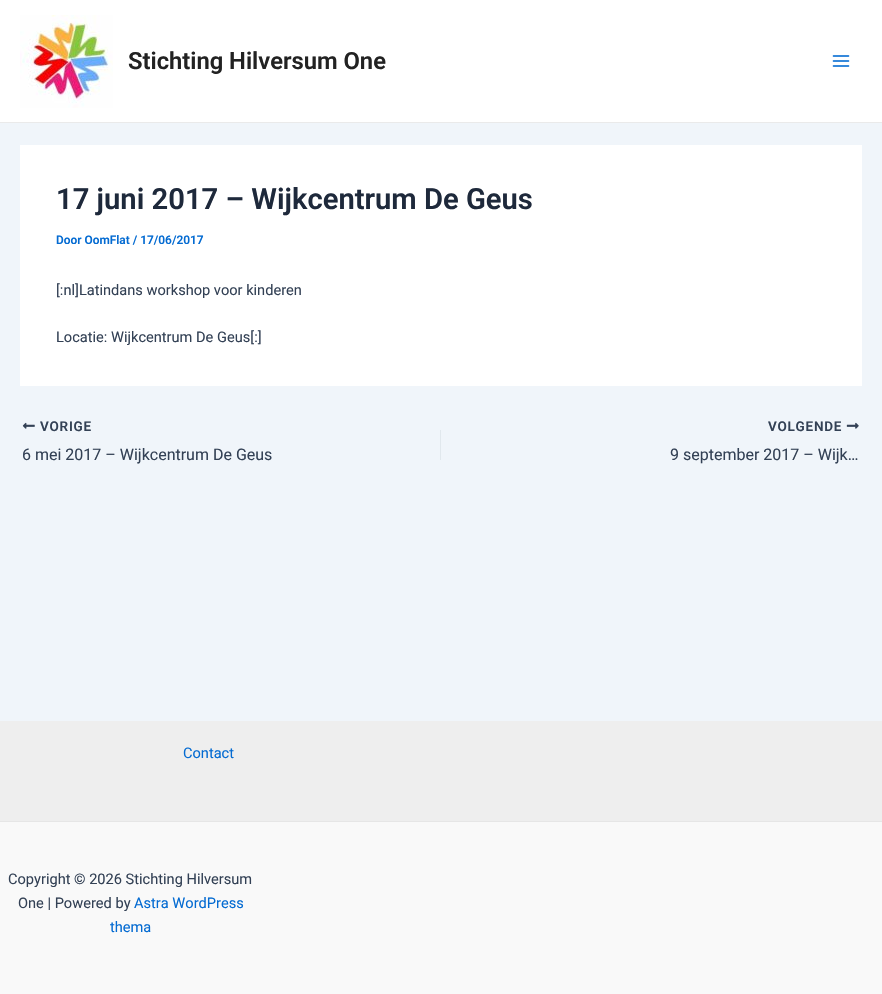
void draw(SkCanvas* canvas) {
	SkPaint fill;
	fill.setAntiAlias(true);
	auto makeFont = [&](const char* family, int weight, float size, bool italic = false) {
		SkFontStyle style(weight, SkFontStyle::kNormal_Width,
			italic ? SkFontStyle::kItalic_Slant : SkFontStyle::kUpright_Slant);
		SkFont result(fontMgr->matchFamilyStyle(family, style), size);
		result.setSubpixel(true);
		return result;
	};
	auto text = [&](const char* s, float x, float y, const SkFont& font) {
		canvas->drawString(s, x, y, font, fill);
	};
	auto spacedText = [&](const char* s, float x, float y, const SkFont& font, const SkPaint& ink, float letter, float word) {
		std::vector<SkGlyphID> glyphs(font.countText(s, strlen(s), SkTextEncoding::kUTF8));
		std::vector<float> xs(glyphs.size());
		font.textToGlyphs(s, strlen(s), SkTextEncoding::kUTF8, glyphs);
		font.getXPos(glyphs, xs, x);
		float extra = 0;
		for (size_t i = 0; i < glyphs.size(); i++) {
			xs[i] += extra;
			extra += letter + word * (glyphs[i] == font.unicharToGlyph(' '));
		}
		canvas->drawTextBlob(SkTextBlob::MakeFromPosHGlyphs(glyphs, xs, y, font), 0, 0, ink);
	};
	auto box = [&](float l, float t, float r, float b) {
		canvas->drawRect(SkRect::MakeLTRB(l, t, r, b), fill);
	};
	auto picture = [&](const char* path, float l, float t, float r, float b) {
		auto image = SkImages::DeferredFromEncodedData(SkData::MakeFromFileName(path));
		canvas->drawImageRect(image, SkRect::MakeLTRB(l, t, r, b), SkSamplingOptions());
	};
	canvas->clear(0xFFF0F5FA);
	fill.setColor(0xFFFFFFFF);
	box(0, 0, 882, 122);
	fill.setColor(0xFFEAEAEA);
	box(0, 122, 882, 123);
	picture("image0.png", 20, 15, 113, 108);
	picture("image1.png", 832, 55, 850, 67);
	fill.setColor(0xFFFFFFFF);
	box(20, 145, 862, 386);
	picture("image2.png", 22, 422, 35, 429);
	fill.setColor(0xFFE1E8ED);
	box(440, 430, 441, 460);
	picture("image3.png", 846, 422, 859, 429);
	fill.setColor(0xFFEEEEEE);
	box(0, 721, 882, 821);
	fill.setColor(0xFFF9F9F9);
	box(0, 822, 882, 994);
	fill.setColor(0xFFE6E6E6);
	box(0, 821, 882, 822);
	auto font1 = makeFont("Roboto", 600, 23.75f);
	fill.setColor(0xFF222222);
	text("Stichting Hilversum One", 128, 69, font1);
	auto font2 = makeFont("Roboto", 600, 29.2f);
	fill.setColor(0xFF1E293B);
	text("17 juni 2017 – Wijkcentrum De Geus", 56, 209, font2);
	auto font3 = makeFont("Roboto", 600, 11.9f);
	fill.setColor(0xFF046BD2);
	text("Door OomFlat / 17/06/2017", 56, 244, font3);
	auto font4 = makeFont("Roboto", 400, 14.6f);
	fill.setColor(0xFF334155);
	text("[:nl]Latindans workshop voor kinderen", 56, 295, font4);
	text("Locatie: Wijkcentrum De Geus[:]", 56, 342, font4);
	auto font5 = makeFont("Roboto", 600, 13.5f);
	spacedText("VORIGE", 40, 431, font5, fill, 0.75f, 0);
	auto font6 = makeFont("Roboto", 400, 16);
	text("6 mei 2017 – Wijkcentrum De Geus", 22, 460, font6);
	spacedText("VOLGENDE", 768, 431, font5, fill, 0.75f, 0);
	text("9 september 2017 – Wijk…", 670, 460, font6);
	fill.setColor(0xFF046BD2);
	text("Contact", 183, 758, font4);
	fill.setColor(0xFF334155);
	text("Copyright © 2026 Stichting Hilversum", 8, 884, font4);
	text("One | Powered by", 18, 908, font4);
	fill.setColor(0xFF046BD2);
	text("Astra WordPress", 134, 908, font4);
	text("thema", 110, 932, font4);
}
